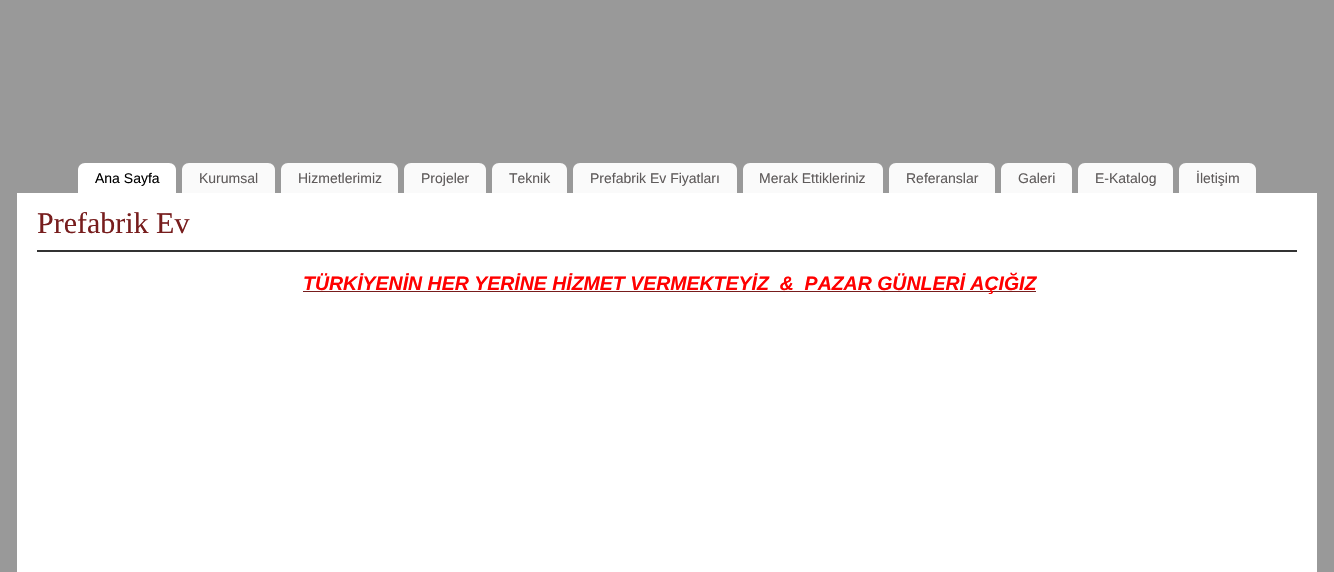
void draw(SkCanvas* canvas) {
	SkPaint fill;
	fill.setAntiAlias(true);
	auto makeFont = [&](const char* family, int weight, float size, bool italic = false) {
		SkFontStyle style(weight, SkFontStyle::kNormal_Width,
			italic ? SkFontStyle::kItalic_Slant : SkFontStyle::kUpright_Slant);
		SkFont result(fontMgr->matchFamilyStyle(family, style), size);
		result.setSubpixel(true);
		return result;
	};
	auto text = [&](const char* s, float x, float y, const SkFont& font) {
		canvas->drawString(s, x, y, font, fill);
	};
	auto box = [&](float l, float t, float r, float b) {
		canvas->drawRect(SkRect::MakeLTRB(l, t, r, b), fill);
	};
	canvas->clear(0xFF999999);
	fill.setColor(0xFFFFFFFF);
	canvas->drawPath(SkPathBuilder().moveTo(85, 163).lineTo(169, 163).cubicTo(173, 163, 176, 166, 176, 170).lineTo(176, 193).lineTo(78, 193).lineTo(78, 170).cubicTo(78, 166, 81, 163, 85, 163).close().detach(), fill);
	fill.setColor(0xFFFAFAFA);
	canvas->drawPath(SkPathBuilder().moveTo(189, 163).lineTo(268, 163).cubicTo(272, 163, 275, 166, 275, 170).lineTo(275, 193).lineTo(182, 193).lineTo(182, 170).cubicTo(182, 166, 185, 163, 189, 163).close().detach(), fill);
	canvas->drawPath(SkPathBuilder().moveTo(288, 163).lineTo(391, 163).cubicTo(395, 163, 398, 166, 398, 170).lineTo(398, 193).lineTo(281, 193).lineTo(281, 170).cubicTo(281, 166, 284, 163, 288, 163).close().detach(), fill);
	canvas->drawPath(SkPathBuilder().moveTo(411, 163).lineTo(479, 163).cubicTo(483, 163, 486, 166, 486, 170).lineTo(486, 193).lineTo(404, 193).lineTo(404, 170).cubicTo(404, 166, 407, 163, 411, 163).close().detach(), fill);
	canvas->drawPath(SkPathBuilder().moveTo(499, 163).lineTo(560, 163).cubicTo(564, 163, 567, 166, 567, 170).lineTo(567, 193).lineTo(492, 193).lineTo(492, 170).cubicTo(492, 166, 495, 163, 499, 163).close().detach(), fill);
	canvas->drawPath(SkPathBuilder().moveTo(580, 163).lineTo(730, 163).cubicTo(734, 163, 737, 166, 737, 170).lineTo(737, 193).lineTo(573, 193).lineTo(573, 170).cubicTo(573, 166, 576, 163, 580, 163).close().detach(), fill);
	canvas->drawPath(SkPathBuilder().moveTo(750, 163).lineTo(876, 163).cubicTo(880, 163, 883, 166, 883, 170).lineTo(883, 193).lineTo(743, 193).lineTo(743, 170).cubicTo(743, 166, 746, 163, 750, 163).close().detach(), fill);
	canvas->drawPath(SkPathBuilder().moveTo(896, 163).lineTo(988, 163).cubicTo(992, 163, 995, 166, 995, 170).lineTo(995, 193).lineTo(889, 193).lineTo(889, 170).cubicTo(889, 166, 892, 163, 896, 163).close().detach(), fill);
	canvas->drawPath(SkPathBuilder().moveTo(1008, 163).lineTo(1065, 163).cubicTo(1069, 163, 1072, 166, 1072, 170).lineTo(1072, 193).lineTo(1001, 193).lineTo(1001, 170).cubicTo(1001, 166, 1004, 163, 1008, 163).close().detach(), fill);
	canvas->drawPath(SkPathBuilder().moveTo(1085, 163).lineTo(1166, 163).cubicTo(1170, 163, 1173, 166, 1173, 170).lineTo(1173, 193).lineTo(1078, 193).lineTo(1078, 170).cubicTo(1078, 166, 1081, 163, 1085, 163).close().detach(), fill);
	canvas->drawPath(SkPathBuilder().moveTo(1186, 163).lineTo(1249, 163).cubicTo(1253, 163, 1256, 166, 1256, 170).lineTo(1256, 193).lineTo(1179, 193).lineTo(1179, 170).cubicTo(1179, 166, 1182, 163, 1186, 163).close().detach(), fill);
	fill.setColor(0xFFFFFFFF);
	box(17, 193, 1317, 572);
	fill.setColor(0xFF333333);
	box(37, 250, 1297, 252);
	fill.setColor(0xFF771D1D);
	box(303, 291, 1036, 292);
	auto font1 = makeFont("Liberation Sans", 400, 14);
	fill.setColor(0xFF000000);
	text("Ana Sayfa", 95, 183, font1);
	fill.setColor(0xFF5F5B5B);
	text("Kurumsal", 199, 183, font1);
	text("Hizmetlerimiz", 298, 183, font1);
	text("Projeler", 421, 183, font1);
	text("Teknik", 509, 183, font1);
	text("Prefabrik Ev Fiyatları", 590, 183, font1);
	text("Merak Ettikleriniz", 759, 183, font1);
	text("Referanslar", 906, 183, font1);
	text("Galeri", 1018, 183, font1);
	text("E-Katalog", 1095, 183, font1);
	text("İletişim", 1196, 183, font1);
	auto font2 = makeFont("Liberation Serif", 400, 30);
	fill.setColor(0xFF771D1D);
	text("Prefabrik Ev", 37, 233, font2);
	auto font3 = makeFont("Liberation Sans", 700, 19.5f, true);
	fill.setColor(0xFFFF0000);
	text("TÜRKİYENİN HER YERİNE HİZMET VERMEKTEYİZ  &  PAZAR GÜNLERİ AÇIĞIZ", 303, 290, font3);
}
